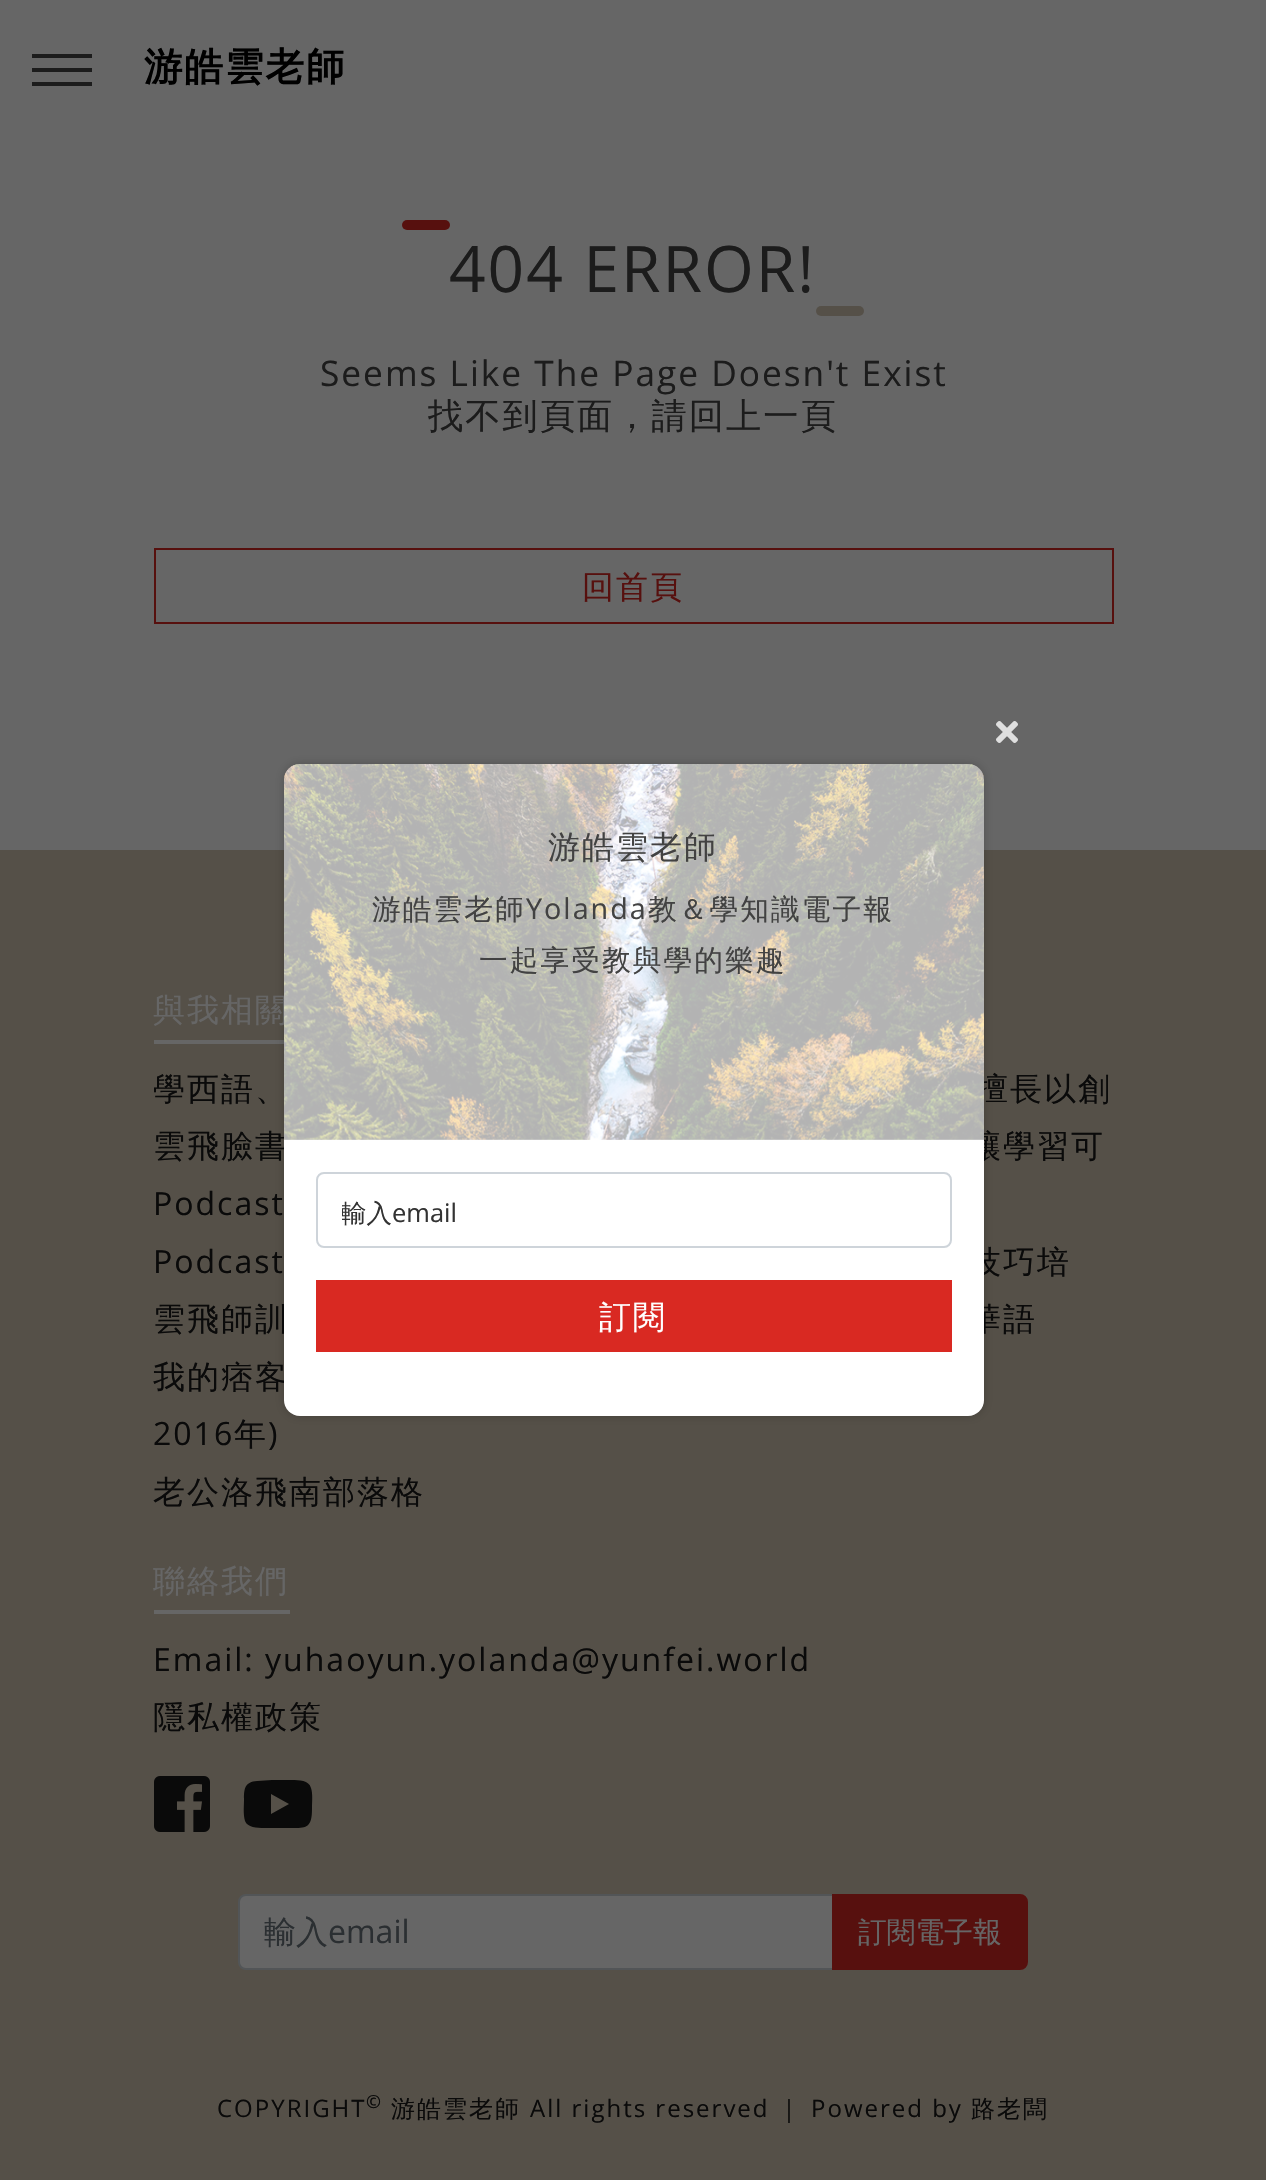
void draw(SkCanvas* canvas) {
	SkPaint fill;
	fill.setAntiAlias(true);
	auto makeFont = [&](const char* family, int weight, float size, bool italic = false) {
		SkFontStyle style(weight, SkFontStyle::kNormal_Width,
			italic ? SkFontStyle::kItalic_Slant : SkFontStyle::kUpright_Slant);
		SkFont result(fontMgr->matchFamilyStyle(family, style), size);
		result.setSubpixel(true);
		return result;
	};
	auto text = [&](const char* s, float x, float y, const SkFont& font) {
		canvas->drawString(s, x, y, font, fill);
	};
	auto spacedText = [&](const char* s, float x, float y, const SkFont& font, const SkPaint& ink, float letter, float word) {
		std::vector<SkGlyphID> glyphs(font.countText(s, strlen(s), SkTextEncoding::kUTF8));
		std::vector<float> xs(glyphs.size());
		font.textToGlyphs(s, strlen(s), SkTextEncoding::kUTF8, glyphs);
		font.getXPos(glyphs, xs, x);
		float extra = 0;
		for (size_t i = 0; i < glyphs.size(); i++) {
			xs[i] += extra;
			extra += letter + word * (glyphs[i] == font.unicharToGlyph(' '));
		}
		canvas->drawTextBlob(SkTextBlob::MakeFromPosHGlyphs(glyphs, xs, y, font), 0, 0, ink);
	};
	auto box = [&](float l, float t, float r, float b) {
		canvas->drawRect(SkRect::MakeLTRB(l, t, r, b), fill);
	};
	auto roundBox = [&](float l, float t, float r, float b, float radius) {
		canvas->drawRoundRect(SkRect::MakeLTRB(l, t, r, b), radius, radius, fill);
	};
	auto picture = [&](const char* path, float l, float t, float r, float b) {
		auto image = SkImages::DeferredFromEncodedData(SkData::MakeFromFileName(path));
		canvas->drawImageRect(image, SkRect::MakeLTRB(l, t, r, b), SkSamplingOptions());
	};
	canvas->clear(0xFF666666);
	fill.setColor(0xFF1C1C1C);
	box(32, 54, 92, 58);
	box(32, 68, 92, 72);
	box(32, 82, 92, 86);
	fill.setColor(0xFF57100E);
	roundBox(402, 220, 450, 230, 5);
	fill.setColor(0xFF555048);
	roundBox(816, 306, 864, 316, 5);
	fill.setStyle(SkPaint::kStroke_Style);
	fill.setStrokeWidth(2);
	fill.setColor(0xFF57100E);
	canvas->drawRect(SkRect::MakeLTRB(155, 549, 1113, 623), fill);
	picture("image0.png", 996, 721, 1018, 743);
	fill.setStyle(SkPaint::kFill_Style);
	fill.setColor(0xFF555048);
	box(0, 850, 1266, 2180);
	fill.setColor(0xFF666666);
	box(154, 1040, 284, 1044);
	fill.setColor(0x33000000);
	fill.setMaskFilter(SkMaskFilter::MakeBlur(kNormal_SkBlurStyle, 5));
	canvas->drawRoundRect(SkRect::MakeLTRB(284, 764, 984, 1416), 16, 16, fill);
	fill.setMaskFilter(nullptr);
	fill.setColor(0xFF666666);
	box(154, 1610, 290, 1614);
	picture("image2.png", 154, 1776, 210, 1832);
	fill.setColor(0xFF0A0A0A);
	canvas->drawPath(SkPathBuilder().moveTo(311, 1788).cubicTo(309, 1780, 299, 1780, 292, 1780).lineTo(272, 1780).lineTo(257, 1781).cubicTo(245, 1782, 244, 1788, 244, 1799).cubicTo(244, 1806, 243, 1814, 245, 1821).cubicTo(248, 1829, 262, 1828, 269, 1828).lineTo(286, 1828).cubicTo(305, 1828, 312, 1830, 312, 1809).cubicTo(312, 1802, 313, 1794, 311, 1788).close().moveTo(271, 1814).lineTo(271, 1794).lineTo(289, 1804).close().detach(), fill);
	fill.setColor(0xFF666666);
	canvas->drawPath(SkPathBuilder().moveTo(246, 1895).lineTo(833, 1895).lineTo(833, 1969).lineTo(246, 1969).cubicTo(242, 1969, 239, 1966, 239, 1962).lineTo(239, 1902).cubicTo(239, 1898, 242, 1895, 246, 1895).close().detach(), fill);
	fill.setStyle(SkPaint::kStroke_Style);
	fill.setColor(0xFF525557);
	canvas->drawPath(SkPathBuilder().moveTo(246, 1895).lineTo(833, 1895).lineTo(833, 1969).lineTo(246, 1969).cubicTo(242, 1969, 239, 1966, 239, 1962).lineTo(239, 1902).cubicTo(239, 1898, 242, 1895, 246, 1895).close().detach(), fill);
	fill.setStyle(SkPaint::kFill_Style);
	fill.setColor(0xFF57100E);
	canvas->drawPath(SkPathBuilder().moveTo(833, 1895).lineTo(1020, 1895).cubicTo(1024, 1895, 1027, 1898, 1027, 1902).lineTo(1027, 1962).cubicTo(1027, 1966, 1024, 1969, 1020, 1969).lineTo(833, 1969).close().detach(), fill);
	fill.setStyle(SkPaint::kStroke_Style);
	canvas->drawPath(SkPathBuilder().moveTo(833, 1895).lineTo(1020, 1895).cubicTo(1024, 1895, 1027, 1898, 1027, 1902).lineTo(1027, 1962).cubicTo(1027, 1966, 1024, 1969, 1020, 1969).lineTo(833, 1969).close().detach(), fill);
	auto font1 = makeFont("WenQuanYi Zen Hei", 700, 38.5f);
	fill.setStyle(SkPaint::kFill_Style);
	fill.setColor(0xFF000000);
	spacedText("游皓雲老師", 144, 80, font1, fill, 2, 0);
	auto font2 = makeFont("Open Sans", 400, 64);
	fill.setColor(0xFF1C1C1C);
	spacedText("404 ERROR!", 449, 292, font2, fill, 2, 0);
	auto font3 = makeFont("Open Sans", 400, 35.25f);
	spacedText("Seems Like The Page Doesn't Exist", 320, 386, font3, fill, 2, 0);
	auto font4 = makeFont("WenQuanYi Zen Hei", 500, 35.25f);
	spacedText("找不到頁面，請回上一頁", 428, 428, font4, fill, 2, 0);
	auto font5 = makeFont("WenQuanYi Zen Hei", 500, 32);
	fill.setColor(0xFF57100E);
	spacedText("回首頁", 582, 598, font5, fill, 2, 0);
	fill.setColor(0xFF666666);
	spacedText("與我相關", 153, 1021, font5, fill, 2, 0);
	fill.setColor(0xFF0A0A0A);
	spacedText("學西語、", 153, 1100, font5, fill, 2, 0);
	spacedText("雲飛臉書", 153, 1157, font5, fill, 2, 0);
	auto font6 = makeFont("Open Sans", 400, 32);
	spacedText("Podcast", 153, 1215, font6, fill, 2, 0);
	spacedText("Podcast", 153, 1273, font6, fill, 2, 0);
	spacedText("雲飛師訓", 153, 1330, font5, fill, 2, 0);
	spacedText("我的痞客", 153, 1388, font5, fill, 2, 0);
	spacedText("2016", 153, 1445, font6, fill, 2, 0);
	spacedText("年", 234, 1445, font5, fill, 2, 0);
	spacedText(")", 268, 1445, font6, fill, 2, 0);
	spacedText("老公洛飛南部落格", 153, 1503, font5, fill, 2, 0);
	spacedText("擅長以創", 976, 1100, font5, fill, 2, 0);
	spacedText("讓學習可", 969, 1157, font5, fill, 2, 0);
	spacedText("技巧培", 969, 1273, font5, fill, 2, 0);
	spacedText("華語", 969, 1330, font5, fill, 2, 0);
	fill.setColor(0xFFFFFFFF);
	roundBox(284, 764, 984, 1416, 16);
	picture("image1.png", 284, 764, 984, 1140);
	fill.setColor(0xB3FFFFFF);
	canvas->drawPath(SkPathBuilder().moveTo(300, 764).lineTo(968, 764).cubicTo(977, 764, 984, 771, 984, 780).lineTo(984, 1140).lineTo(284, 1140).lineTo(284, 780).cubicTo(284, 771, 291, 764, 300, 764).close().detach(), fill);
	auto font7 = makeFont("WenQuanYi Zen Hei", 500, 28.75f);
	fill.setColor(0xFF424242);
	spacedText("一起享受教與學的樂趣", 479, 970, font7, fill, 2, 0);
	spacedText("教＆學知識電子報", 648, 919, font7, fill, 2, 0);
	auto font8 = makeFont("Open Sans", 400, 28.75f);
	spacedText("Yolanda", 526, 919, font8, fill, 2, 0);
	spacedText("游皓雲老師", 372, 919, font7, fill, 2, 0);
	spacedText("游皓雲老師", 548, 858, font5, fill, 2, 0);
	fill.setColor(0xFFD92922);
	box(316, 1280, 952, 1352);
	fill.setColor(0xFFFFFFFF);
	spacedText("訂閱", 599, 1328, font5, fill, 2, 0);
	fill.setStyle(SkPaint::kStroke_Style);
	fill.setColor(0xFFCED4DA);
	canvas->drawRoundRect(SkRect::MakeLTRB(317, 1173, 951, 1247), 7, 7, fill);
	auto font9 = makeFont("Open Sans", 400, 25.5f);
	fill.setStyle(SkPaint::kFill_Style);
	fill.setColor(0xFF333333);
	text("email", 392, 1222, font9);
	canvas->save();
	canvas->clipRect(SkRect::MakeLTRB(342, 1194, 926, 1232));
	auto font10 = makeFont("WenQuanYi Zen Hei", 500, 25.5f);
	text("輸入", 341, 1222, font10);
	canvas->restore();
	fill.setColor(0xFF666666);
	spacedText("聯絡我們", 153, 1592, font5, fill, 2, 0);
	fill.setColor(0xFF0A0A0A);
	spacedText("Email: yuhaoyun.yolanda@yunfei.world", 153, 1671, font6, fill, 2, 0);
	spacedText("隱私權政策", 153, 1728, font5, fill, 2, 0);
	fill.setColor(0xFF2B2F32);
	text("輸入", 264, 1943, font5);
	text("email", 328, 1943, font6);
	fill.setColor(0xFF666666);
	text("訂閱電子報", 858, 1942, font7);
	auto font11 = makeFont("Open Sans", 400, 24);
	fill.setColor(0xFF0A0A0A);
	spacedText("COPYRIGHT", 217, 2117, font11, fill, 2, 0);
	auto font12 = makeFont("Open Sans", 500, 18);
	spacedText("©", 366, 2108, font12, fill, 2, 0);
	auto font13 = makeFont("WenQuanYi Zen Hei", 500, 24);
	spacedText("游皓雲老師", 391, 2117, font13, fill, 2, 0);
	spacedText("All rights reserved", 530, 2117, font11, fill, 2, 0);
	spacedText("｜", 777, 2117, font13, fill, 2, 0);
	spacedText("Powered by", 811, 2117, font11, fill, 2, 0);
	spacedText("路老闆", 971, 2117, font13, fill, 2, 0);
}
